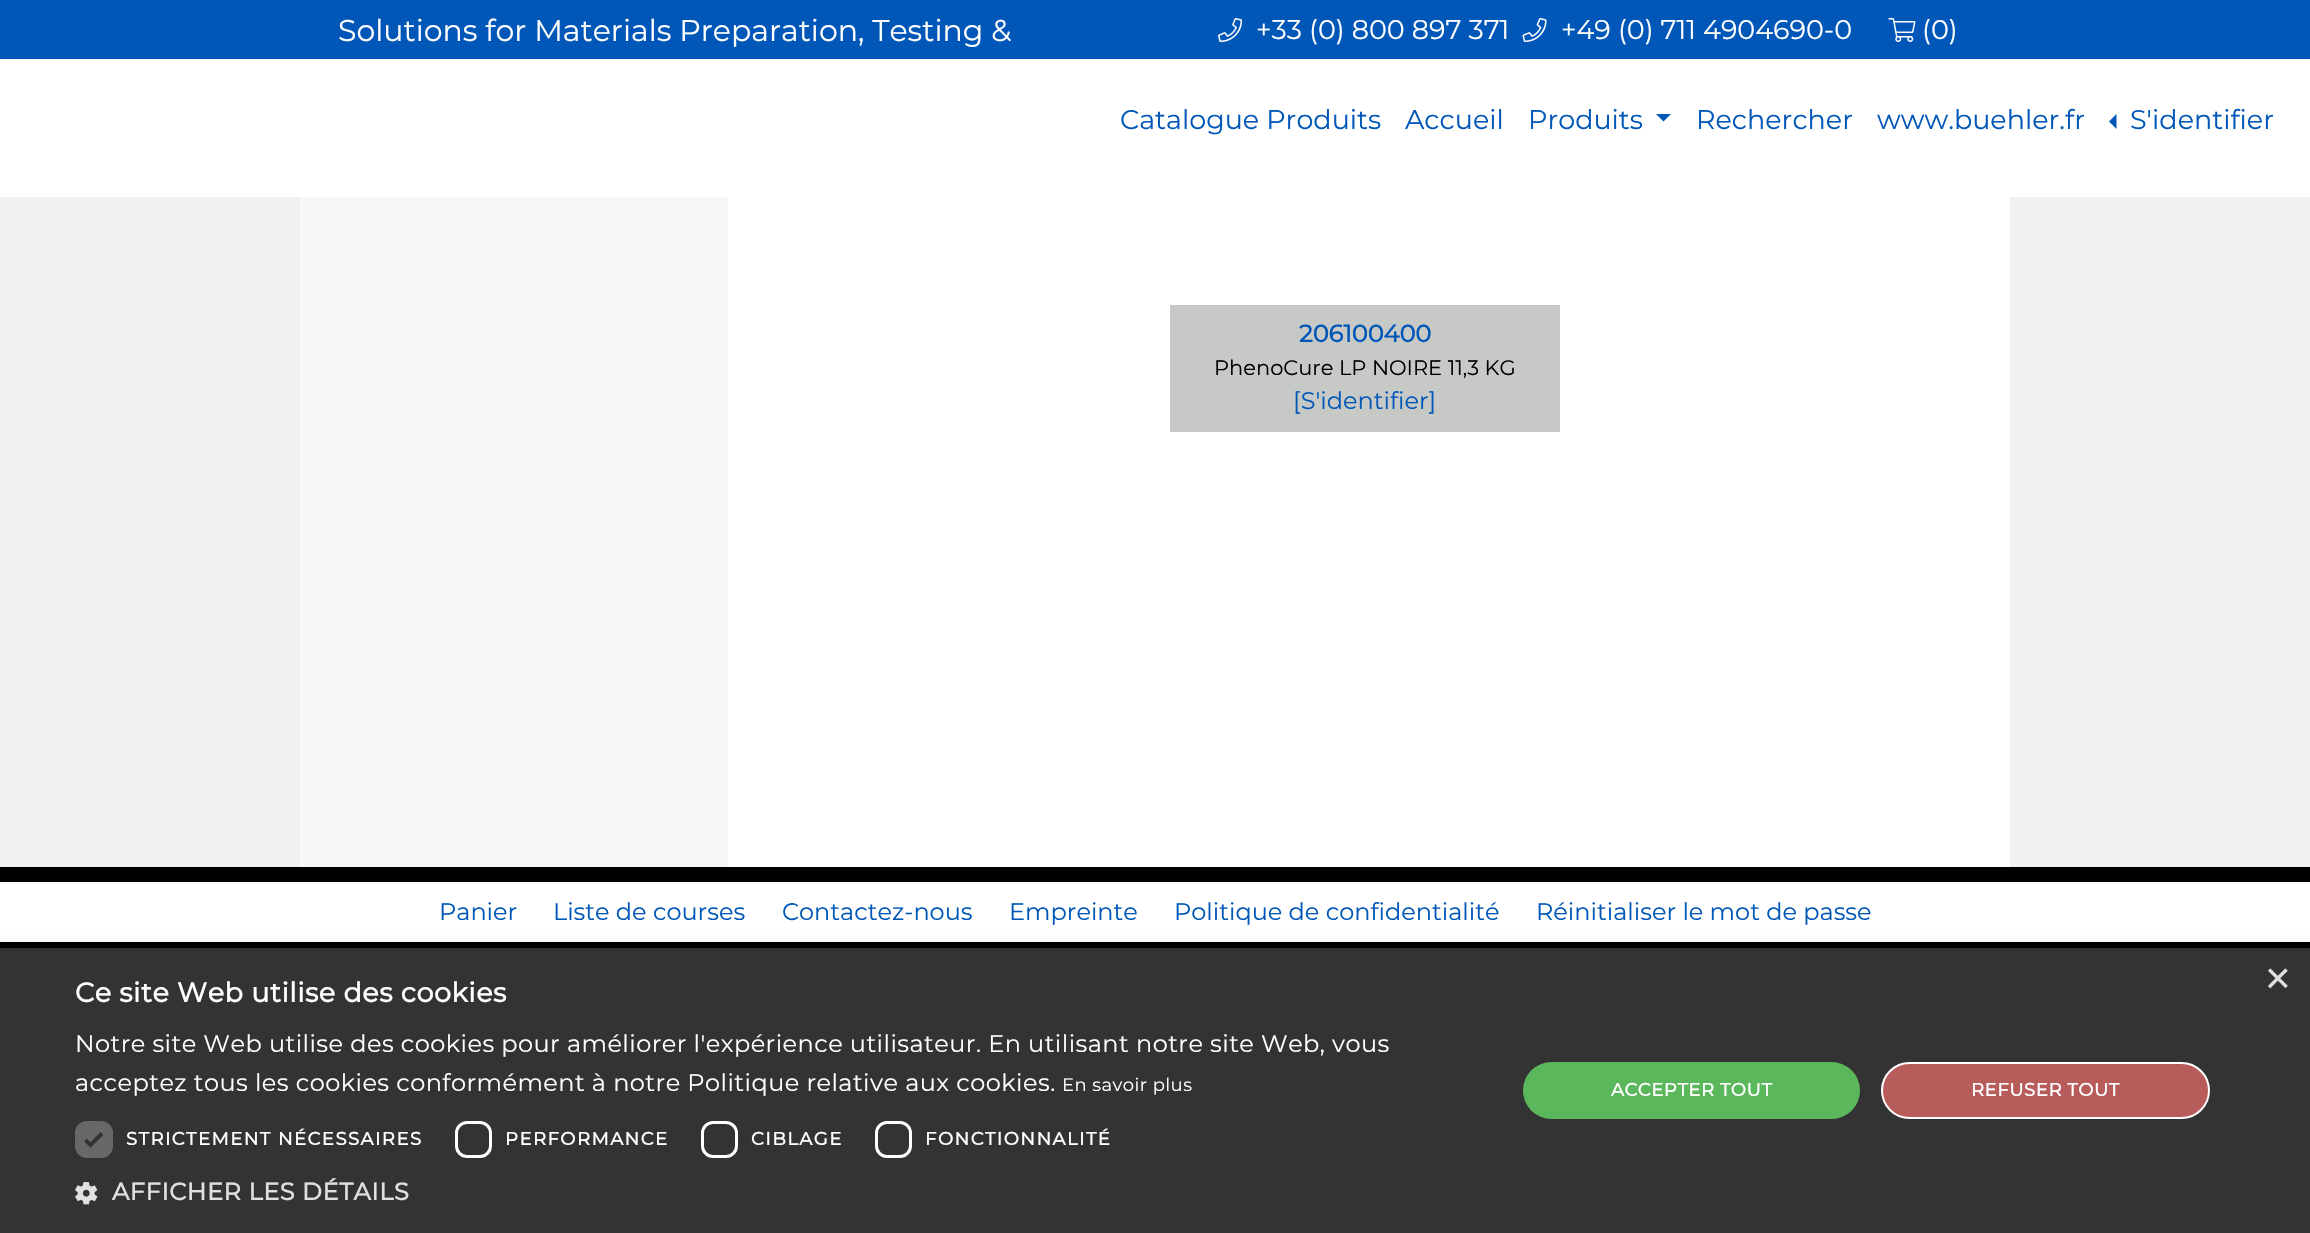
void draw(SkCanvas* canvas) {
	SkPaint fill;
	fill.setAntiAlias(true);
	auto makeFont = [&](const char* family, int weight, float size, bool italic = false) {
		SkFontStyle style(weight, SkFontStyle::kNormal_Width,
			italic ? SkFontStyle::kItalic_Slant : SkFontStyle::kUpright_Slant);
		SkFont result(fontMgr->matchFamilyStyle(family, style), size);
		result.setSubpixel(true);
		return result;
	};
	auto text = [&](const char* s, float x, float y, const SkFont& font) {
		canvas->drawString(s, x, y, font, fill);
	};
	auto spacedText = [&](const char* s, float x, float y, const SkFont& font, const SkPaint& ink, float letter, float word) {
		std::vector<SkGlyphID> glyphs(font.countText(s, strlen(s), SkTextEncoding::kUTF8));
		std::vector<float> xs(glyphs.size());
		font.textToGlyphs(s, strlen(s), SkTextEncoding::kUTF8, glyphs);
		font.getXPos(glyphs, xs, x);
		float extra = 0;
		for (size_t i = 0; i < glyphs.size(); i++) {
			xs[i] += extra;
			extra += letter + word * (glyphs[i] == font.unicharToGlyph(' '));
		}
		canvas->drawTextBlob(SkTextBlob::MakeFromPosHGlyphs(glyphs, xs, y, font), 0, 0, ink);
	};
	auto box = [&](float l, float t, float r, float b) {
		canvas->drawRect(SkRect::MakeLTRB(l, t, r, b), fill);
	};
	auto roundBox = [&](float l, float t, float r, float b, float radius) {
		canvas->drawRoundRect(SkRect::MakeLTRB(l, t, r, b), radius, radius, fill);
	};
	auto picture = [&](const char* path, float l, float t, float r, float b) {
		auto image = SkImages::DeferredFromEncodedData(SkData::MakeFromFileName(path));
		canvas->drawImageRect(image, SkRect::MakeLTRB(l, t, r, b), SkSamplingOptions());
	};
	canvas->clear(0xFFF1F1F1);
	fill.setColor(0xFF0057B8);
	box(0, 0, 2310, 59);
	picture("image0.png", 1218, 18, 1243, 42);
	picture("image1.png", 1522, 18, 1547, 42);
	picture("image2.png", 1888, 18, 1916, 42);
	fill.setColor(0xFFFFFFFF);
	box(0, 59, 2310, 197);
	fill.setColor(0xFF0057B8);
	canvas->drawPath(SkPathBuilder().moveTo(1656, 114).lineTo(1671, 114).lineTo(1663.5f, 121.5f).close().detach(), fill);
	canvas->drawPath(SkPathBuilder().moveTo(2116.5f, 114).lineTo(2116.5f, 129).lineTo(2109, 121.5f).close().detach(), fill);
	fill.setColor(0xFFFFFFFF);
	box(728, 197, 2010, 867);
	fill.setColor(0xFFF8F8F8);
	box(300, 197, 728, 867);
	fill.setColor(0xFFC7C9C7);
	box(1170, 305, 1560, 432);
	fill.setColor(0xFF000000);
	box(0, 867, 2310, 948);
	fill.setColor(0xFFFFFFFF);
	box(0, 882, 2310, 942);
	fill.setColor(0x59000000);
	fill.setMaskFilter(SkMaskFilter::MakeBlur(kNormal_SkBlurStyle, 6));
	canvas->drawRect(SkRect::MakeLTRB(2, 951, 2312, 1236), fill);
	fill.setMaskFilter(nullptr);
	fill.setColor(0xFF333333);
	box(0, 948, 2310, 1233);
	fill.setColor(0xFF686868);
	roundBox(75, 1121, 113, 1158, 12);
	fill.setStyle(SkPaint::kStroke_Style);
	fill.setStrokeWidth(3.9f);
	fill.setColor(0xFF333333);
	canvas->drawPath(SkPathBuilder().moveTo(85.5f, 1140).lineTo(90.5f, 1145).lineTo(102, 1133.5f).detach(), fill);
	fill.setStrokeWidth(3);
	fill.setColor(0xFFFFFFFF);
	canvas->drawRoundRect(SkRect::MakeLTRB(456.5f, 1122.5f, 490.5f, 1156.5f), 10.5f, 10.5f, fill);
	canvas->drawRoundRect(SkRect::MakeLTRB(702.5f, 1122.5f, 736.5f, 1156.5f), 10.5f, 10.5f, fill);
	canvas->drawRoundRect(SkRect::MakeLTRB(876.5f, 1122.5f, 910.5f, 1156.5f), 10.5f, 10.5f, fill);
	picture("image3.png", 75, 1182, 98, 1205);
	fill.setStyle(SkPaint::kFill_Style);
	fill.setColor(0xFF5BB75B);
	roundBox(1523, 1062, 1860, 1119, 28.5f);
	fill.setColor(0xFFB75B5B);
	canvas->drawRoundRect(SkRect::MakeLTRB(1882, 1063, 2209, 1118), 27.5f, 27.5f, fill);
	fill.setStyle(SkPaint::kStroke_Style);
	fill.setStrokeWidth(2);
	fill.setColor(0xFFFFFFFF);
	canvas->drawRoundRect(SkRect::MakeLTRB(1882, 1063, 2209, 1118), 27.5f, 27.5f, fill);
	auto font1 = makeFont("Montserrat", 100, 30);
	fill.setStyle(SkPaint::kFill_Style);
	text("Solutions for Materials Preparation, Testing &", 338, 41, font1);
	auto font2 = makeFont("Montserrat", 100, 27);
	text("+33 (0) 800 897 371", 1256, 39, font2);
	text("+49 (0) 711 4904690-0", 1561, 39, font2);
	text("(0)", 1922, 39, font2);
	fill.setColor(0xFF0057B8);
	text("Catalogue Produits", 1120, 129, font2);
	text("Accueil", 1405, 129, font2);
	text("Produits", 1528, 129, font2);
	text("Rechercher", 1696, 129, font2);
	text("www.buehler.fr", 1877, 129, font2);
	text("S'identifier", 2130, 129, font2);
	auto font3 = makeFont("Montserrat", 700, 24);
	text("206100400", 1299, 342, font3);
	auto font4 = makeFont("Montserrat", 100, 21);
	fill.setColor(0xFF000000);
	text("PhenoCure LP NOIRE 11,3 KG", 1214, 375, font4);
	auto font5 = makeFont("Montserrat", 100, 24);
	fill.setColor(0xFF0057B8);
	text("[S'identifier]", 1293, 409, font5);
	text("Panier", 439, 920, font5);
	text("Liste de courses", 553, 920, font5);
	text("Contactez-nous", 782, 920, font5);
	text("Empreinte", 1009, 920, font5);
	text("Politique de confidentialité", 1174, 920, font5);
	text("Réinitialiser le mot de passe", 1536, 920, font5);
	auto font6 = makeFont("Liberation Sans", 400, 44);
	fill.setColor(0xFFE0E0E0);
	text("×", 2265, 993, font6);
	auto font7 = makeFont("Montserrat", 700, 27);
	fill.setColor(0xFFFFFFFF);
	spacedText("Ce site Web utilise des cookies", 75, 1002, font7, fill, 0.6f, 0);
	spacedText("Notre site Web utilise des cookies pour améliorer l'expérience utilisateur. En utilisant notre site Web, vous", 75, 1052, font5, fill, 0.45f, 0);
	spacedText("acceptez tous les cookies conformément à notre Politique relative aux cookies.", 75, 1091, font5, fill, 0.45f, 0);
	auto font8 = makeFont("Montserrat", 100, 18);
	spacedText("En savoir plus", 1062, 1091, font8, fill, 0.45f, 0);
	auto font9 = makeFont("Montserrat", 700, 18);
	spacedText("STRICTEMENT NÉCESSAIRES", 126, 1145, font9, fill, 1.5f, 0);
	spacedText("PERFORMANCE", 505, 1145, font9, fill, 1.5f, 0);
	spacedText("CIBLAGE", 751, 1145, font9, fill, 1.5f, 0);
	spacedText("FONCTIONNALITÉ", 925, 1145, font9, fill, 1.5f, 0);
	fill.setColor(0xFFE0E0E0);
	spacedText("AFFICHER LES DÉTAILS", 112, 1200, font3, fill, 0.6f, 0);
	fill.setColor(0xFFFFFFFF);
	spacedText("ACCEPTER TOUT", 1611, 1096, font9, fill, 0.6f, 0);
	spacedText("REFUSER TOUT", 1971, 1096, font9, fill, 0.6f, 0);
}
